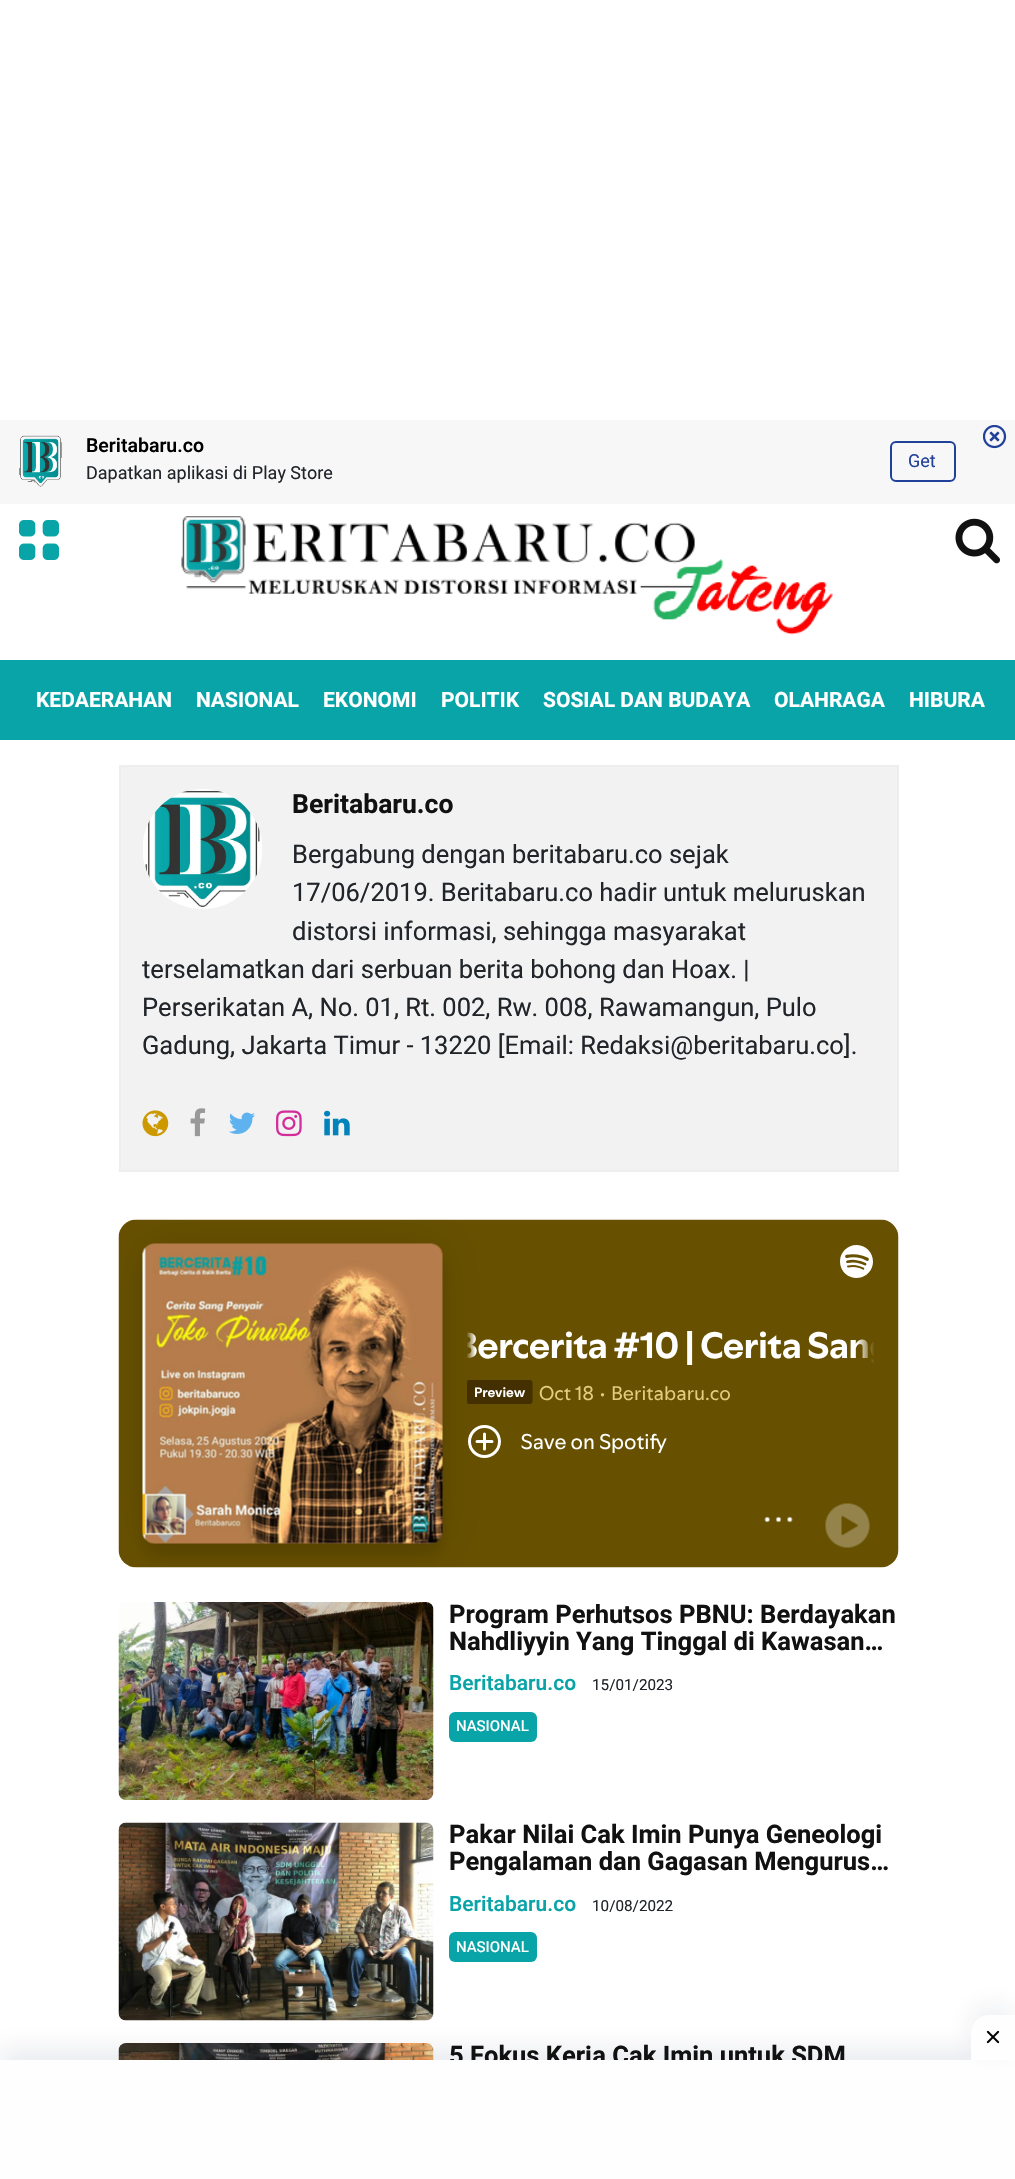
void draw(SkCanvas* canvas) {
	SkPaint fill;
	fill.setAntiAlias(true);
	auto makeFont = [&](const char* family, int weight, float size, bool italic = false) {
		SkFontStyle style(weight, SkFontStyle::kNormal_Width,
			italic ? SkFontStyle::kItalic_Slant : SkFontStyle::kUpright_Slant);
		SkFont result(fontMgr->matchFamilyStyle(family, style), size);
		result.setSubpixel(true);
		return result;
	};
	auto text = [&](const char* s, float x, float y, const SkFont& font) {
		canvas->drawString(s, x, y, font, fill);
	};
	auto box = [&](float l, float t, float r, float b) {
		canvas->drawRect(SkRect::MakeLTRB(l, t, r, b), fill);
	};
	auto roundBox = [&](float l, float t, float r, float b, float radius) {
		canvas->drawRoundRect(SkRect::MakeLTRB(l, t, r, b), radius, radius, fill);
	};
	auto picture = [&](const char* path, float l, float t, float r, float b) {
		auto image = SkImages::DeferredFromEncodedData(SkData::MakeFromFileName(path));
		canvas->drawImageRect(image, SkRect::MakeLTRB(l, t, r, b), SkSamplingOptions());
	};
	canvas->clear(0xFFFFFFFF);
	fill.setColor(0xFFF7F7F7);
	box(0, 420, 1015, 504);
	picture("image0.png", 19, 435, 62, 487);
	fill.setStyle(SkPaint::kStroke_Style);
	fill.setStrokeWidth(2);
	fill.setColor(0xFF21409A);
	canvas->drawRoundRect(SkRect::MakeLTRB(891, 442, 955, 481), 5, 5, fill);
	picture("image1.png", 983, 425, 1007, 449);
	picture("image2.png", 19, 520, 59, 560);
	picture("image3.png", 181, 516, 833, 635);
	picture("image4.png", 955, 518, 1000, 564);
	fill.setStyle(SkPaint::kFill_Style);
	fill.setColor(0xFF09A4A8);
	box(0, 660, 1015, 740);
	fill.setColor(0xFFF2F2F2);
	canvas->drawRect(SkRect::MakeLTRB(120, 766, 898, 1171), fill);
	fill.setStyle(SkPaint::kStroke_Style);
	fill.setColor(0xFFEEEEEE);
	canvas->drawRect(SkRect::MakeLTRB(120, 766, 898, 1171), fill);
	picture("image5.png", 143, 789, 262, 909);
	picture("image6.png", 142, 1110, 169, 1137);
	picture("image7.png", 190, 1108, 206, 1137);
	picture("image8.png", 229, 1112, 255, 1134);
	picture("image9.png", 276, 1110, 302, 1137);
	picture("image10.png", 324, 1110, 350, 1136);
	picture("image11.png", 118, 1219, 899, 1568);
	picture("image12.png", 118, 1602, 434, 1800);
	fill.setStyle(SkPaint::kFill_Style);
	fill.setColor(0xFF09A4A8);
	roundBox(449, 1712, 537, 1742, 6);
	picture("image13.png", 118, 1822, 434, 2021);
	roundBox(449, 1932, 537, 1962, 6);
	picture("image14.png", 118, 2043, 434, 2060);
	fill.setColor(0x1A09204C);
	fill.setMaskFilter(SkMaskFilter::MakeBlur(kNormal_SkBlurStyle, 13.5f));
	canvas->drawRect(SkRect::MakeLTRB(0, 2051, 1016, 2171), fill);
	fill.setMaskFilter(nullptr);
	auto font1 = makeFont("Heebo", 600, 19.5f);
	fill.setColor(0xFF000000);
	text("Beritabaru.co", 86, 452, font1);
	auto font2 = makeFont("Heebo", 400, 18);
	fill.setColor(0xFF212529);
	text("Dapatkan aplikasi di Play Store", 86, 479, font2);
	fill.setColor(0xFF21409A);
	text("Get", 908, 467, font2);
	auto font3 = makeFont("Heebo", 700, 21);
	fill.setColor(0xFFFFFFFF);
	text("KEDAERAHAN", 36, 707, font3);
	text("NASIONAL", 196, 707, font3);
	text("EKONOMI", 323, 707, font3);
	text("POLITIK", 441, 707, font3);
	text("SOSIAL DAN BUDAYA", 543, 707, font3);
	text("OLAHRAGA", 774, 707, font3);
	text("HIBURA", 909, 707, font3);
	auto font4 = makeFont("Heebo", 700, 26.5f);
	fill.setColor(0xFF111111);
	text("Beritabaru.co", 292, 813, font4);
	auto font5 = makeFont("Heebo", 400, 25.5f);
	fill.setColor(0xFF212529);
	text("Bergabung dengan beritabaru.co sejak", 292, 863, font5);
	text("17/06/2019. Beritabaru.co hadir untuk meluruskan", 292, 901, font5);
	text("distorsi informasi, sehingga masyarakat", 292, 940, font5);
	text("terselamatkan dari serbuan berita bohong dan Hoax. |", 142, 978, font5);
	text("Perserikatan A, No. 01, Rt. 002, Rw. 008, Rawamangun, Pulo", 142, 1016, font5);
	text("Gadung, Jakarta Timur - 13220 [Email: Redaksi@beritabaru.co].", 142, 1054, font5);
	auto font6 = makeFont("Heebo", 700, 25.5f);
	fill.setColor(0xFF111111);
	text("Program Perhutsos PBNU: Berdayakan", 449, 1623, font6);
	text("Nahdliyyin Yang Tinggal di Kawasan…", 449, 1650, font6);
	auto font7 = makeFont("Heebo", 600, 21);
	fill.setColor(0xFF09A4A8);
	text("Beritabaru.co", 449, 1690, font7);
	auto font8 = makeFont("Heebo", 400, 15.25f);
	fill.setColor(0xFF212529);
	text("15/01/2023", 592, 1690, font8);
	auto font9 = makeFont("Heebo", 500, 15);
	fill.setColor(0xFFFFFFFF);
	text("NASIONAL", 456, 1731, font9);
	fill.setColor(0xFF111111);
	text("Pakar Nilai Cak Imin Punya Geneologi", 449, 1843, font6);
	text("Pengalaman dan Gagasan Mengurus…", 449, 1870, font6);
	fill.setColor(0xFF09A4A8);
	text("Beritabaru.co", 449, 1911, font7);
	fill.setColor(0xFF212529);
	text("10/08/2022", 592, 1911, font8);
	fill.setColor(0xFFFFFFFF);
	text("NASIONAL", 456, 1952, font9);
	fill.setColor(0xFF111111);
	text("5 Fokus Kerja Cak Imin untuk SDM", 449, 2064, font6);
	fill.setColor(0xFFFEFEFE);
	box(0, 2060, 1015, 2179);
	fill.setColor(0x1409204C);
	fill.setMaskFilter(SkMaskFilter::MakeBlur(kNormal_SkBlurStyle, 13.5f));
	canvas->drawRoundRect(SkRect::MakeLTRB(971, 2006, 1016, 2051), 18, 18, fill);
	fill.setMaskFilter(nullptr);
	fill.setColor(0xFFFEFEFE);
	canvas->drawPath(SkPathBuilder().moveTo(989, 2015).lineTo(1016, 2015).lineTo(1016, 2060).lineTo(971, 2060).lineTo(971, 2033).cubicTo(971, 2023, 979, 2015, 989, 2015).close().detach(), fill);
	picture("image15.png", 986, 2030, 1000, 2044);
}
